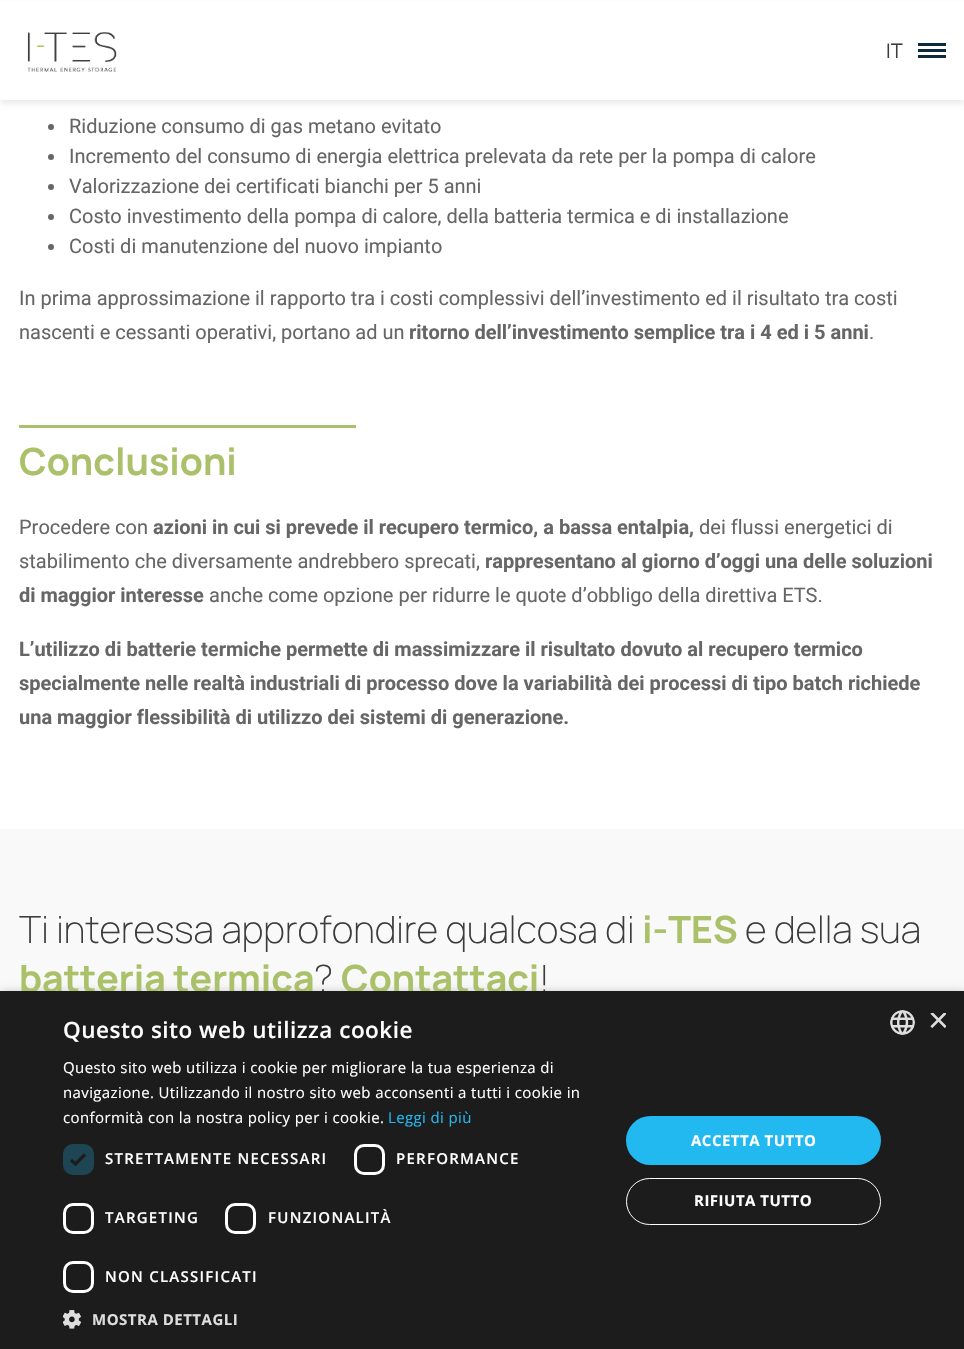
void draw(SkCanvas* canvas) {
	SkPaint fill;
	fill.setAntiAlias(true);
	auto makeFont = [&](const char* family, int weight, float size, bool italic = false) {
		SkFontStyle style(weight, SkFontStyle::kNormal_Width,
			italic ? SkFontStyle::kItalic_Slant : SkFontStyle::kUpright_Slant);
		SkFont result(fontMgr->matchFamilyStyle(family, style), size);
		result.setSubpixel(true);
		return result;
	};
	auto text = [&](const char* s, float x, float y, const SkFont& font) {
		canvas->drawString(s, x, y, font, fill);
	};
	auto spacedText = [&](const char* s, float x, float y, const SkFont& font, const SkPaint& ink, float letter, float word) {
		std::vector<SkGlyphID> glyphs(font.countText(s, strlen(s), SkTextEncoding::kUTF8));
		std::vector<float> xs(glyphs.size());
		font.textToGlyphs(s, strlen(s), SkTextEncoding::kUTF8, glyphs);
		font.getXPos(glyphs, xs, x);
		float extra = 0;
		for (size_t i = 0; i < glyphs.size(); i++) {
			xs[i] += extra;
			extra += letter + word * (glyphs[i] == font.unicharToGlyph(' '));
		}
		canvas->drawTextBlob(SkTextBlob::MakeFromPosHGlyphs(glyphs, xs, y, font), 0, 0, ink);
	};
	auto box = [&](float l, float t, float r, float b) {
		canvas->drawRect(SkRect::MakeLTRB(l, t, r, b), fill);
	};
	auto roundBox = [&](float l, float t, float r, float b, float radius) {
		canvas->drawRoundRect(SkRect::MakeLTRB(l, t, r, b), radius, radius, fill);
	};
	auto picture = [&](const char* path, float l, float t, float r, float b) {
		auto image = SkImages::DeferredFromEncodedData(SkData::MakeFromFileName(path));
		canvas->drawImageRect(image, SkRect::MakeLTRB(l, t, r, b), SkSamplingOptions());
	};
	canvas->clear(0xFFFFFFFF);
	fill.setColor(0x12000000);
	fill.setMaskFilter(SkMaskFilter::MakeBlur(kNormal_SkBlurStyle, 2.5f));
	canvas->drawRect(SkRect::MakeLTRB(0, 4, 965, 104), fill);
	fill.setMaskFilter(nullptr);
	fill.setColor(0xFFFFFFFF);
	box(0, 1, 964, 100);
	picture("image0.png", 27, 32, 117, 72);
	fill.setColor(0xFF0E2B3D);
	box(918, 43, 946, 46);
	box(918, 49, 946, 52);
	box(918, 55, 946, 58);
	fill.setColor(0xFF666666);
	canvas->drawCircle(51, 127, 3, fill);
	canvas->drawCircle(51, 157, 3, fill);
	canvas->drawCircle(51, 187, 3, fill);
	canvas->drawCircle(51, 217, 3, fill);
	canvas->drawCircle(51, 247, 3, fill);
	fill.setColor(0xFFAAC069);
	box(19, 425, 356, 428);
	fill.setColor(0xFFF9F9F9);
	box(0, 829, 964, 991);
	fill.setColor(0x59000000);
	fill.setMaskFilter(SkMaskFilter::MakeBlur(kNormal_SkBlurStyle, 5));
	canvas->drawRect(SkRect::MakeLTRB(1, 994, 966, 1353), fill);
	fill.setMaskFilter(nullptr);
	auto font1 = makeFont("Manrope", 400, 20);
	fill.setColor(0xFF3D3C3D);
	text("IT", 886, 58, font1);
	auto font2 = makeFont("Roboto", 400, 20);
	fill.setColor(0xFF666666);
	text("Riduzione consumo di gas metano evitato", 69, 133, font2);
	text("Incremento del consumo di energia elettrica prelevata da rete per la pompa di calore", 69, 163, font2);
	text("Valorizzazione dei certificati bianchi per 5 anni", 69, 193, font2);
	text("Costo investimento della pompa di calore, della batteria termica e di installazione", 69, 223, font2);
	text("Costi di manutenzione del nuovo impianto", 69, 253, font2);
	text("In prima approssimazione il rapporto tra i costi complessivi dell’investimento ed il risultato tra costi", 19, 305, font2);
	text("nascenti e cessanti operativi, portano ad un", 19, 339, font2);
	auto font3 = makeFont("Roboto", 700, 20);
	text("ritorno dell’investimento semplice tra i 4 ed i 5 anni", 409, 339, font3);
	text(".", 869, 339, font2);
	auto font4 = makeFont("Manrope", 700, 37.5f);
	fill.setColor(0xFFAAC069);
	text("Conclusioni", 19, 475, font4);
	fill.setColor(0xFF666666);
	text("Procedere con", 19, 534, font2);
	text("azioni in cui si prevede il recupero termico, a bassa entalpia,", 153, 534, font3);
	text("dei flussi energetici di", 699, 534, font2);
	text("stabilimento che diversamente andrebbero sprecati,", 19, 568, font2);
	text("rappresentano al giorno d’oggi una delle soluzioni", 485, 568, font3);
	text("di maggior interesse", 19, 602, font3);
	text("anche come opzione per ridurre le quote d’obbligo della direttiva ETS.", 209, 602, font2);
	text("L’utilizzo di batterie termiche permette di massimizzare il risultato dovuto al recupero termico", 19, 656, font3);
	text("specialmente nelle realtà industriali di processo dove la variabilità dei processi di tipo batch richiede", 19, 690, font3);
	text("una maggior flessibilità di utilizzo dei sistemi di generazione.", 19, 724, font3);
	auto font5 = makeFont("Manrope", 200, 37.5f);
	fill.setColor(0xFF3D3C3D);
	text("Ti interessa approfondire qualcosa di", 19, 943, font5);
	fill.setColor(0xFFAAC069);
	text("i-TES", 642, 943, font4);
	fill.setColor(0xFF3D3C3D);
	text("e della sua", 745, 943, font5);
	fill.setColor(0xFFAAC069);
	text("batteria termica", 19, 992, font4);
	fill.setColor(0xFF3D3C3D);
	text("?", 314, 992, font5);
	fill.setColor(0xFFAAC069);
	text("Contattaci", 341, 992, font4);
	fill.setColor(0xFF3D3C3D);
	text("!", 539, 992, font5);
	fill.setColor(0xFF1C1C1C);
	box(0, 991, 964, 1349);
	auto font6 = makeFont("Open Sans", 600, 22.5f);
	fill.setColor(0xFFFFFFFF);
	spacedText("Questo sito web utilizza cookie", 63, 1038, font6, fill, 0.5f, 0);
	auto font7 = makeFont("Open Sans", 400, 15);
	spacedText("Questo sito web utilizza i cookie per migliorare la tua esperienza di", 63, 1073, font7, fill, 0.38f, 0);
	spacedText("navigazione. Utilizzando il nostro sito web acconsenti a tutti i cookie in", 63, 1098, font7, fill, 0.38f, 0);
	spacedText("conformità con la nostra policy per i cookie.", 63, 1123, font7, fill, 0.38f, 0);
	fill.setColor(0xFF22B8F0);
	spacedText("Leggi di più", 388, 1123, font7, fill, 0.38f, 0);
	fill.setColor(0xFF1E4553);
	roundBox(63, 1144, 94, 1175, 10);
	fill.setStyle(SkPaint::kStroke_Style);
	fill.setStrokeWidth(3.3f);
	fill.setColor(0xFF1C1C1C);
	canvas->drawPath(SkPathBuilder().moveTo(71, 1160).lineTo(75.5f, 1164).lineTo(85, 1154.5f).detach(), fill);
	auto font8 = makeFont("Open Sans", 600, 15);
	fill.setStyle(SkPaint::kFill_Style);
	fill.setColor(0xFFFFFFFF);
	spacedText("STRETTAMENTE NECESSARI", 105, 1164, font8, fill, 1.25f, 0);
	fill.setStyle(SkPaint::kStroke_Style);
	fill.setStrokeWidth(3);
	canvas->drawRoundRect(SkRect::MakeLTRB(355.5f, 1145.5f, 383.5f, 1173.5f), 8.5f, 8.5f, fill);
	fill.setStyle(SkPaint::kFill_Style);
	spacedText("PERFORMANCE", 396, 1164, font8, fill, 1.25f, 0);
	fill.setStyle(SkPaint::kStroke_Style);
	canvas->drawRoundRect(SkRect::MakeLTRB(64.5f, 1204.5f, 92.5f, 1232.5f), 8.5f, 8.5f, fill);
	fill.setStyle(SkPaint::kFill_Style);
	spacedText("TARGETING", 105, 1223, font8, fill, 1.25f, 0);
	fill.setStyle(SkPaint::kStroke_Style);
	canvas->drawRoundRect(SkRect::MakeLTRB(226.5f, 1204.5f, 254.5f, 1232.5f), 8.5f, 8.5f, fill);
	fill.setStyle(SkPaint::kFill_Style);
	spacedText("FUNZIONALITÀ", 268, 1223, font8, fill, 1.25f, 0);
	fill.setStyle(SkPaint::kStroke_Style);
	canvas->drawRoundRect(SkRect::MakeLTRB(64.5f, 1262.5f, 92.5f, 1291.5f), 8.5f, 8.5f, fill);
	fill.setStyle(SkPaint::kFill_Style);
	spacedText("NON CLASSIFICATI", 105, 1282, font8, fill, 1.25f, 0);
	picture("image1.png", 63, 1310, 81, 1329);
	auto font9 = makeFont("Open Sans", 700, 15);
	fill.setColor(0xFFDDDDDD);
	spacedText("MOSTRA DETTAGLI", 92, 1325, font9, fill, 0.5f, 0);
	fill.setColor(0xFF22B8F0);
	roundBox(626, 1116, 881, 1165, 24.5f);
	fill.setColor(0xFFFFFFFF);
	spacedText("ACCETTA TUTTO", 691, 1146, font9, fill, 0.5f, 0);
	fill.setStyle(SkPaint::kStroke_Style);
	fill.setStrokeWidth(1);
	canvas->drawRoundRect(SkRect::MakeLTRB(626.5f, 1178.5f, 880.5f, 1224.5f), 23, 23, fill);
	fill.setStyle(SkPaint::kFill_Style);
	spacedText("RIFIUTA TUTTO", 694, 1206, font9, fill, 0.5f, 0);
	picture("image2.png", 890, 1010, 915, 1035);
	canvas->save();
	canvas->clipRect(SkRect::MakeLTRB(928, 1013, 946, 1031));
	auto font10 = makeFont("Liberation Sans", 400, 36);
	fill.setColor(0xFFDDDDDD);
	text("×", 928, 1032, font10);
	canvas->restore();
}
